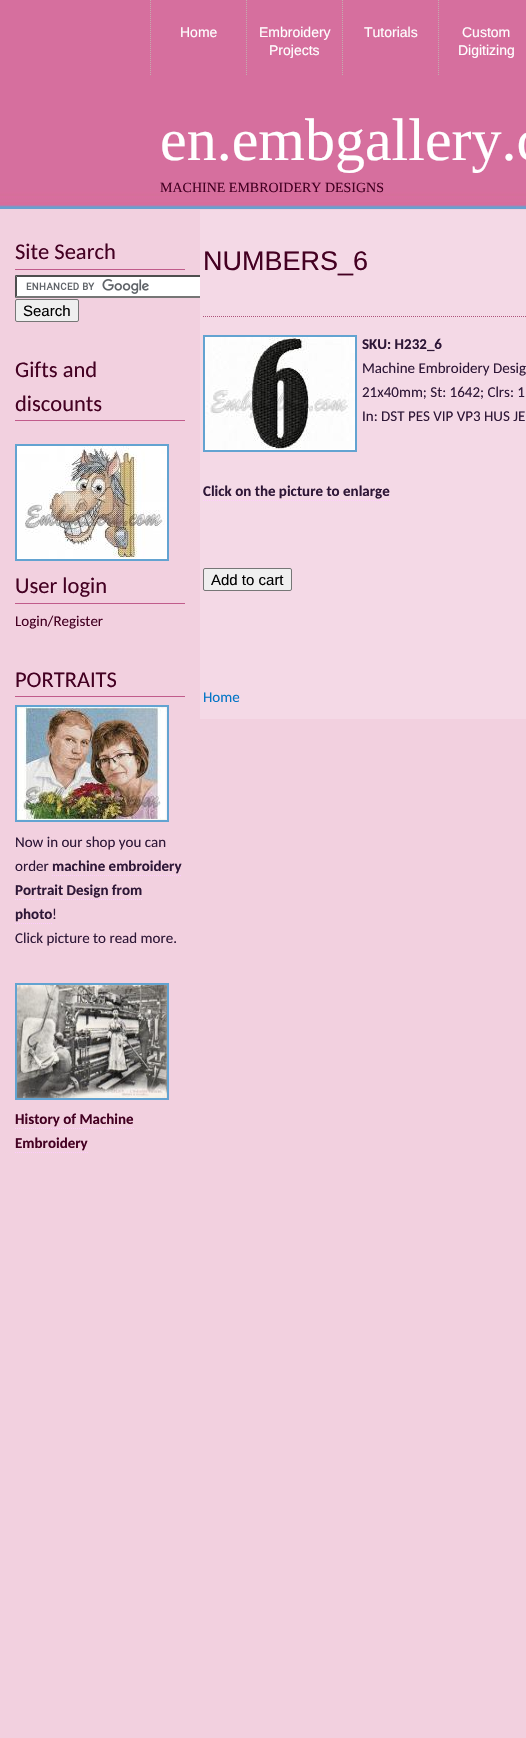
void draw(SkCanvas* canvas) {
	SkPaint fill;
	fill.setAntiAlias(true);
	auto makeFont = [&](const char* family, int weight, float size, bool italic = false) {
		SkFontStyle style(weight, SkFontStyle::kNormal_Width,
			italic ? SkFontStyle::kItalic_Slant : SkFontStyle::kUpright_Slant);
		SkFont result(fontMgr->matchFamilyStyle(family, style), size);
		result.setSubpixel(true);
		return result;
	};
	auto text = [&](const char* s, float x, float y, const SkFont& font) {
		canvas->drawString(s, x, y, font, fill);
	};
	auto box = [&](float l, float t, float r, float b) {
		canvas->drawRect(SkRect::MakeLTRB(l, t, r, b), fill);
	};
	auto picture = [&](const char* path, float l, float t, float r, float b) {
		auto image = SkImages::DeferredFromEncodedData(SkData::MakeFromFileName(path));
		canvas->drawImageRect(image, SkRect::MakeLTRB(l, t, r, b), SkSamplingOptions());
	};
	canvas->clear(0xFFF2D0DF);
	picture("image0.png", 0, 0, 526, 209);
	fill.setStyle(SkPaint::kStroke_Style);
	fill.setStrokeWidth(1);
	fill.setColor(0xFFC3ADAE);
	fill.setPathEffect(SkDashPathEffect::Make({{1, 1}}, 0));
	canvas->drawPath(SkPathBuilder().moveTo(150.5f, 0).lineTo(150.5f, 76).detach(), fill);
	fill.setPathEffect(nullptr);
	fill.setPathEffect(SkDashPathEffect::Make({{1, 1}}, 0));
	canvas->drawPath(SkPathBuilder().moveTo(246.5f, 0).lineTo(246.5f, 76).detach(), fill);
	fill.setPathEffect(nullptr);
	fill.setPathEffect(SkDashPathEffect::Make({{1, 1}}, 0));
	canvas->drawPath(SkPathBuilder().moveTo(342.5f, 0).lineTo(342.5f, 76).detach(), fill);
	fill.setPathEffect(nullptr);
	fill.setPathEffect(SkDashPathEffect::Make({{1, 1}}, 0));
	canvas->drawPath(SkPathBuilder().moveTo(438.5f, 0).lineTo(438.5f, 76).detach(), fill);
	fill.setPathEffect(nullptr);
	fill.setStyle(SkPaint::kFill_Style);
	fill.setColor(0xFFC15B8B);
	box(15, 269, 185, 270);
	fill.setColor(0xFFFFFFFF);
	box(15, 275, 200, 298);
	picture("image1.png", 26, 279, 149, 294);
	canvas->save();
	canvas->clipRect(SkRect::MakeLTRB(0, 210, 200, 1205));
	fill.setColor(0xFF4F4F4F);
	canvas->drawPath(SkPathBuilder().moveTo(15, 275).lineTo(204, 275).lineTo(202, 277).lineTo(17, 277).close().detach(), fill);
	fill.setColor(0xFF767676);
	canvas->drawPath(SkPathBuilder().moveTo(204, 298).lineTo(15, 298).lineTo(17, 296).lineTo(202, 296).close().detach(), fill);
	canvas->restore();
	fill.setColor(0xFF4F4F4F);
	canvas->drawPath(SkPathBuilder().moveTo(15, 298).lineTo(15, 275).lineTo(17, 277).lineTo(17, 296).close().detach(), fill);
	fill.setColor(0xFFEFEFEF);
	canvas->drawRoundRect(SkRect::MakeLTRB(15.5f, 299.5f, 78.5f, 321.5f), 1.5f, 1.5f, fill);
	fill.setStyle(SkPaint::kStroke_Style);
	fill.setColor(0xFF767676);
	canvas->drawRoundRect(SkRect::MakeLTRB(15.5f, 299.5f, 78.5f, 321.5f), 1.5f, 1.5f, fill);
	fill.setStyle(SkPaint::kFill_Style);
	fill.setColor(0xFFC15B8B);
	box(15, 420, 185, 421);
	fill.setStyle(SkPaint::kStroke_Style);
	fill.setStrokeWidth(2);
	fill.setColor(0xFF63A3D1);
	canvas->drawRect(SkRect::MakeLTRB(16, 445, 168, 560), fill);
	picture("image2.png", 17, 446, 167, 559);
	fill.setStyle(SkPaint::kFill_Style);
	fill.setColor(0xFFC15B8B);
	box(15, 603, 185, 604);
	box(15, 696, 185, 697);
	fill.setStyle(SkPaint::kStroke_Style);
	fill.setColor(0xFF63A3D1);
	canvas->drawRect(SkRect::MakeLTRB(16, 706, 168, 821), fill);
	picture("image3.png", 17, 707, 167, 820);
	fill.setStrokeWidth(1);
	fill.setColor(0xFFFFCCFF);
	fill.setPathEffect(SkDashPathEffect::Make({{1, 1}}, 0));
	canvas->drawPath(SkPathBuilder().moveTo(52, 875.5f).lineTo(182, 875.5f).detach(), fill);
	fill.setPathEffect(nullptr);
	fill.setPathEffect(SkDashPathEffect::Make({{1, 1}}, 0));
	canvas->drawPath(SkPathBuilder().moveTo(15, 899.5f).lineTo(142, 899.5f).detach(), fill);
	fill.setPathEffect(nullptr);
	fill.setPathEffect(SkDashPathEffect::Make({{1, 1}}, 0));
	canvas->drawPath(SkPathBuilder().moveTo(15, 923.5f).lineTo(52, 923.5f).detach(), fill);
	fill.setPathEffect(nullptr);
	fill.setStrokeWidth(2);
	fill.setColor(0xFF63A3D1);
	canvas->drawRect(SkRect::MakeLTRB(16, 984, 168, 1099), fill);
	picture("image4.png", 17, 985, 167, 1098);
	fill.setStrokeWidth(1);
	fill.setColor(0xFFFFCCFF);
	fill.setPathEffect(SkDashPathEffect::Make({{1, 1}}, 0));
	canvas->drawPath(SkPathBuilder().moveTo(15, 1128.5f).lineTo(134, 1128.5f).detach(), fill);
	fill.setPathEffect(nullptr);
	fill.setPathEffect(SkDashPathEffect::Make({{1, 1}}, 0));
	canvas->drawPath(SkPathBuilder().moveTo(15, 1152.5f).lineTo(88, 1152.5f).detach(), fill);
	fill.setPathEffect(nullptr);
	fill.setStyle(SkPaint::kFill_Style);
	fill.setColor(0xFFF4D9E6);
	box(200, 210, 526, 719);
	fill.setStyle(SkPaint::kStroke_Style);
	fill.setColor(0xFFAE537B);
	fill.setPathEffect(SkDashPathEffect::Make({{1, 1}}, 0));
	canvas->drawPath(SkPathBuilder().moveTo(203, 316.5f).lineTo(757, 316.5f).detach(), fill);
	fill.setPathEffect(nullptr);
	fill.setStrokeWidth(2);
	fill.setColor(0xFF63A3D1);
	canvas->drawRect(SkRect::MakeLTRB(204, 336, 356, 451), fill);
	picture("image5.png", 205, 337, 355, 450);
	fill.setStrokeWidth(1);
	fill.setColor(0xFFFFCCFF);
	fill.setPathEffect(SkDashPathEffect::Make({{1, 1}}, 0));
	canvas->drawPath(SkPathBuilder().moveTo(203, 500.5f).lineTo(390, 500.5f).detach(), fill);
	fill.setPathEffect(nullptr);
	fill.setStyle(SkPaint::kFill_Style);
	fill.setColor(0xFFEFEFEF);
	canvas->drawRoundRect(SkRect::MakeLTRB(203.5f, 568.5f, 291.5f, 590.5f), 1.5f, 1.5f, fill);
	fill.setStyle(SkPaint::kStroke_Style);
	fill.setColor(0xFF767676);
	canvas->drawRoundRect(SkRect::MakeLTRB(203.5f, 568.5f, 291.5f, 590.5f), 1.5f, 1.5f, fill);
	auto font1 = makeFont("Liberation Sans", 400, 14);
	fill.setStyle(SkPaint::kFill_Style);
	fill.setColor(0xFFFFFFFF);
	text("Home", 180, 37, font1);
	text("Embroidery", 259, 37, font1);
	text("Projects", 269, 55, font1);
	text("Tutorials", 364, 37, font1);
	text("Custom", 462, 37, font1);
	text("Digitizing", 458, 55, font1);
	auto font2 = makeFont("Liberation Serif", 400, 60);
	text("en.embgallery.c", 160, 160, font2);
	auto font3 = makeFont("Liberation Serif", 400, 14);
	fill.setColor(0xFF440022);
	text("MACHINE EMBROIDERY DESIGNS", 160, 192, font3);
	auto font4 = makeFont("Carlito", 400, 22.5f);
	text("Site Search", 15, 259, font4);
	auto font5 = makeFont("Liberation Sans", 400, 15);
	fill.setColor(0xFF000000);
	text("Search", 23, 316, font5);
	fill.setColor(0xFF440022);
	text("Gifts and", 15, 377, font4);
	text("discounts", 15, 411, font4);
	text("User login", 15, 593, font4);
	auto font6 = makeFont("Carlito", 400, 15);
	text("Login/Register", 15, 626, font6);
	text("PORTRAITS", 15, 687, font4);
	fill.setColor(0xFF2E1737);
	text("Now in our shop you can", 15, 847, font6);
	text("order", 15, 871, font6);
	auto font7 = makeFont("Carlito", 700, 15);
	text("machine embroidery", 52, 871, font7);
	text("Portrait Design from", 15, 895, font7);
	text("photo", 15, 919, font7);
	text("!", 52, 919, font6);
	text("Сlick picture to read more.", 15, 943, font6);
	fill.setColor(0xFF440022);
	text("History of Machine", 15, 1124, font7);
	text("Embroidery", 15, 1148, font7);
	auto font8 = makeFont("Liberation Sans", 400, 27);
	text("NUMBERS_6", 203, 270, font8);
	fill.setColor(0xFF2E1737);
	text("SKU: H232_6", 362, 349, font7);
	text("Machine Embroidery Desig", 362, 373, font6);
	text("21x40mm; St: 1642; Clrs: 1", 362, 397, font6);
	text("In: DST PES VIP VP3 HUS JE", 362, 421, font6);
	text("Click on the picture to enlarge", 203, 496, font7);
	fill.setColor(0xFF000000);
	text("Add to cart", 211, 585, font5);
	fill.setColor(0xFF0576C7);
	text("Home", 203, 702, font6);
}
